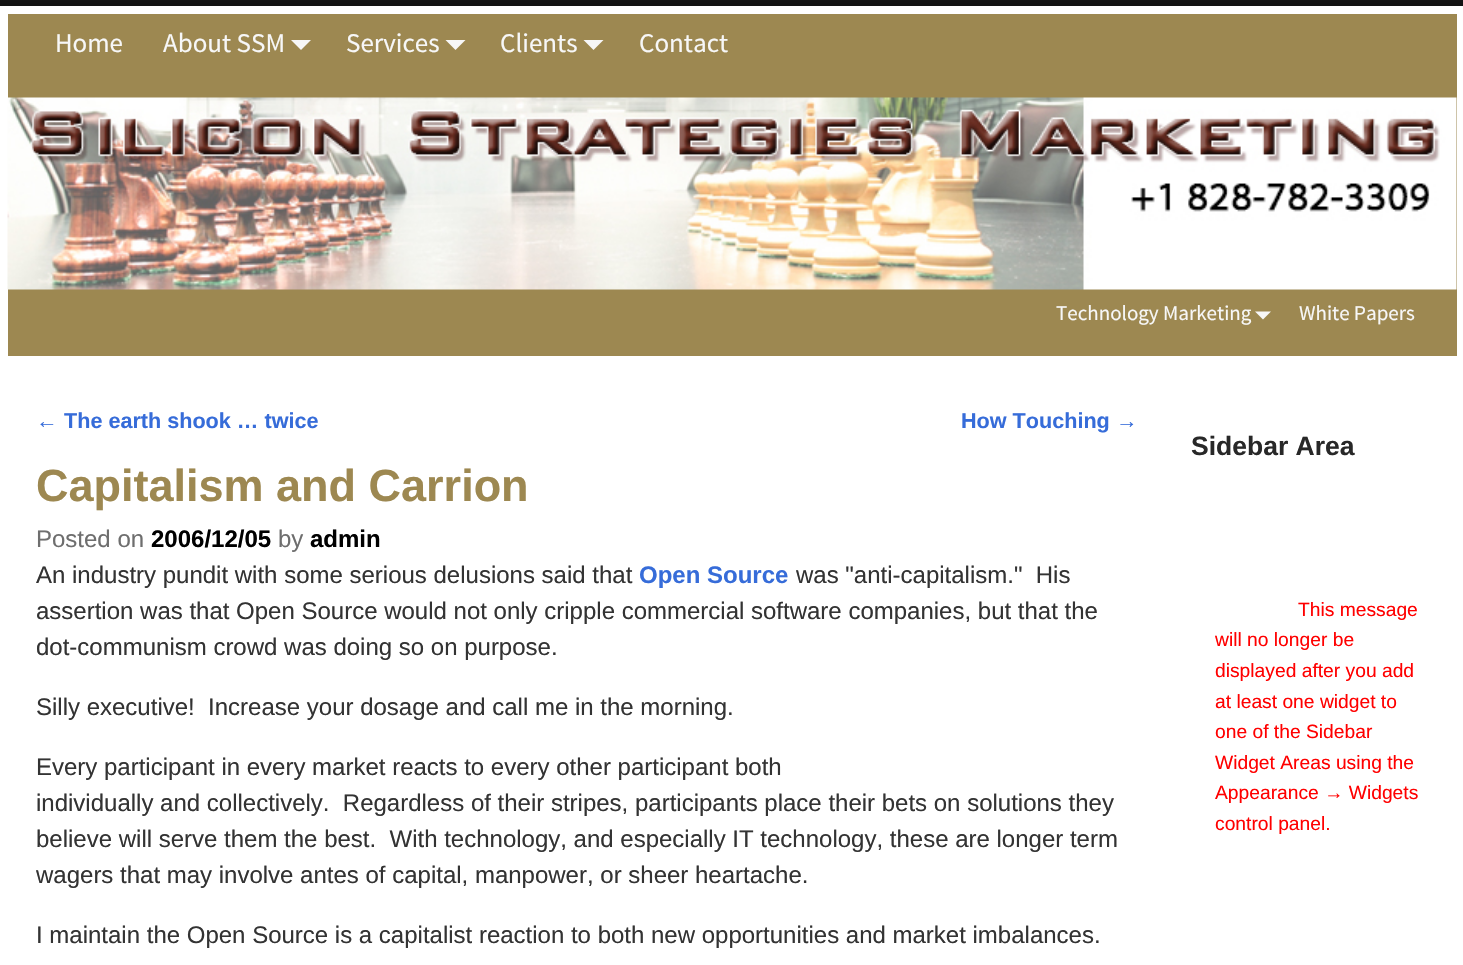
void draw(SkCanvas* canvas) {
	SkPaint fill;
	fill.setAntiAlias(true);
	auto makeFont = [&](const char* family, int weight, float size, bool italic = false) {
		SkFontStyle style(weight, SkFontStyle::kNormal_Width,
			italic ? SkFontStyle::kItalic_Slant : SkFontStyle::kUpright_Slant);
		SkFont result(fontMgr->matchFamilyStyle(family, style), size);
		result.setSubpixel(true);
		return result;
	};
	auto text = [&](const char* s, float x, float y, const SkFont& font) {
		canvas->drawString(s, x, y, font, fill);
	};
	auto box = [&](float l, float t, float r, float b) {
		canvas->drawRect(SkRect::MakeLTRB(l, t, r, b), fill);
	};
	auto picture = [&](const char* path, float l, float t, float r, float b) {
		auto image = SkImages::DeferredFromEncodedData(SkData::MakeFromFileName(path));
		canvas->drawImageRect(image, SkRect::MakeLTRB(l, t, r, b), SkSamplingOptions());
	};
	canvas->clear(0xFF303030);
	picture("image0.png", 0, 0, 1463, 6);
	fill.setColor(0x40000000);
	fill.setMaskFilter(SkMaskFilter::MakeBlur(kNormal_SkBlurStyle, 2));
	canvas->drawRect(SkRect::MakeLTRB(-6, 0, 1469, 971), fill);
	fill.setMaskFilter(nullptr);
	fill.setColor(0xFFFFFFFF);
	box(0, 6, 1463, 965);
	fill.setColor(0xFF9D8851);
	box(8, 14, 1457, 356);
	fill.setColor(0xFFF7F7F7);
	canvas->drawPath(SkPathBuilder().moveTo(291, 40).lineTo(311, 40).lineTo(301, 50).close().detach(), fill);
	canvas->drawPath(SkPathBuilder().moveTo(445.5f, 40).lineTo(465.5f, 40).lineTo(455.5f, 50).close().detach(), fill);
	canvas->drawPath(SkPathBuilder().moveTo(583.5f, 40).lineTo(603.5f, 40).lineTo(593.5f, 50).close().detach(), fill);
	picture("image1.png", 7, 97, 1457, 290);
	canvas->drawPath(SkPathBuilder().moveTo(1255, 311.5f).lineTo(1271, 311.5f).lineTo(1263, 319.5f).close().detach(), fill);
	auto font1 = makeFont("Source Sans Pro", 400, 27);
	text("Home", 55, 52, font1);
	text("About SSM", 163, 52, font1);
	text("Services", 346, 52, font1);
	text("Clients", 500, 52, font1);
	text("Contact", 639, 52, font1);
	auto font2 = makeFont("Source Sans Pro", 400, 21);
	text("Technology Marketing", 1056, 320, font2);
	text("White Papers", 1299, 320, font2);
	auto font3 = makeFont("Liberation Sans", 400, 21.6f);
	fill.setColor(0xFF366CD9);
	text("←", 36, 428, font3);
	auto font4 = makeFont("Liberation Sans", 700, 21.6f);
	text("The earth shook … twice", 64, 428, font4);
	text("How Touching", 961, 428, font4);
	text("→", 1116, 428, font3);
	auto font5 = makeFont("Liberation Sans", 700, 45);
	fill.setColor(0xFF9D8851);
	text("Capitalism and Carrion", 36, 501, font5);
	auto font6 = makeFont("Liberation Sans", 400, 24);
	fill.setColor(0xFF6E6E6E);
	text("Posted on", 36, 547, font6);
	auto font7 = makeFont("Liberation Sans", 700, 24);
	fill.setColor(0xFF000000);
	text("2006/12/05", 151, 547, font7);
	fill.setColor(0xFF6E6E6E);
	text("by", 278, 547, font6);
	fill.setColor(0xFF000000);
	text("admin", 310, 547, font7);
	fill.setColor(0xFF333333);
	text("An industry pundit with some serious delusions said that", 36, 583, font6);
	fill.setColor(0xFF366CD9);
	text("Open Source", 639, 583, font7);
	fill.setColor(0xFF333333);
	text("was \"anti-capitalism.\"  His", 796, 583, font6);
	text("assertion was that Open Source would not only cripple commercial software companies, but that the", 36, 619, font6);
	text("dot-communism crowd was doing so on purpose.", 36, 655, font6);
	text("Silly executive!  Increase your dosage and call me in the morning.", 36, 715, font6);
	text("Every participant in every market reacts to every other participant both", 36, 775, font6);
	text("individually and collectively.  Regardless of their stripes, participants place their bets on solutions they", 36, 811, font6);
	text("believe will serve them the best.  With technology, and especially IT technology, these are longer term", 36, 847, font6);
	text("wagers that may involve antes of capital, manpower, or sheer heartache.", 36, 883, font6);
	text("I maintain the Open Source is a capitalist reaction to both new opportunities and market imbalances.", 36, 943, font6);
	auto font8 = makeFont("Liberation Sans", 700, 26.5f);
	fill.setColor(0xFF282828);
	text("Sidebar Area", 1191, 455, font8);
	auto font9 = makeFont("Liberation Sans", 400, 19.25f);
	fill.setColor(0xFFFF0000);
	text("This message", 1298, 616, font9);
	text("will no longer be", 1215, 646, font9);
	text("displayed after you add", 1215, 677, font9);
	text("at least one widget to", 1215, 708, font9);
	text("one of the Sidebar", 1215, 738, font9);
	text("Widget Areas using the", 1215, 769, font9);
	text("Appearance → Widgets", 1215, 799, font9);
	text("control panel.", 1215, 830, font9);
}
